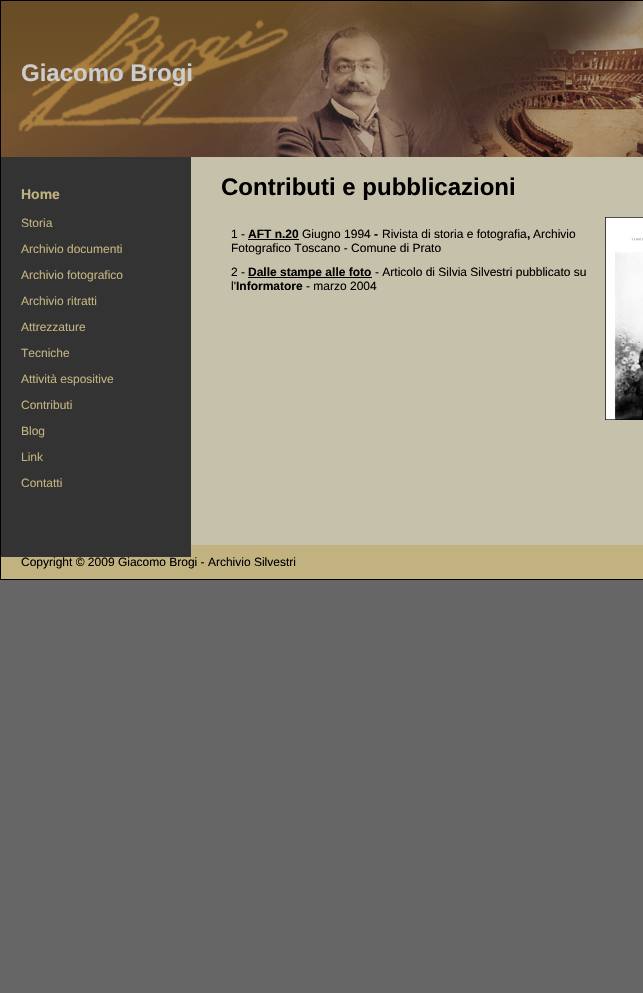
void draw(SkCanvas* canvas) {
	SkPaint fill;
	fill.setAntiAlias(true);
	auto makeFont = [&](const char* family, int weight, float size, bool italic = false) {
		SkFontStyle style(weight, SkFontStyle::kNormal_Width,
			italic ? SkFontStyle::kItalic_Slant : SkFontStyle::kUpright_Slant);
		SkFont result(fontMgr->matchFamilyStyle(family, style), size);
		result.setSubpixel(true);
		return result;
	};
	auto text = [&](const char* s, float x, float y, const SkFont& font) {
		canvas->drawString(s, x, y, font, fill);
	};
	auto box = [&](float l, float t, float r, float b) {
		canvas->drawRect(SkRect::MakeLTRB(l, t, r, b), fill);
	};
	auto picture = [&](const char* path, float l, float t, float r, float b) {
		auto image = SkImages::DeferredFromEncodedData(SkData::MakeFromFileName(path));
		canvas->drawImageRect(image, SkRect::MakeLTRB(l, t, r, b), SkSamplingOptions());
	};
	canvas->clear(0xFF666666);
	fill.setColor(0xFFC5C1AA);
	box(191, 157, 643, 545);
	fill.setStyle(SkPaint::kStroke_Style);
	fill.setStrokeWidth(1);
	fill.setColor(0xFF000000);
	canvas->drawRect(SkRect::MakeLTRB(0.5f, 0.5f, 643.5f, 579.5f), fill);
	picture("image0.png", 1, 1, 643, 157);
	fill.setStyle(SkPaint::kFill_Style);
	fill.setColor(0xFFC2B280);
	box(1, 545, 643, 579);
	fill.setColor(0xFF333333);
	box(1, 157, 191, 557);
	fill.setColor(0xFF000000);
	box(248, 239, 299, 240);
	box(248, 277, 372, 278);
	picture("image1.png", 605, 217, 643, 420);
	auto font1 = makeFont("Liberation Sans", 700, 24);
	fill.setColor(0xFFCCCCCC);
	text("Giacomo Brogi", 21, 81, font1);
	auto font2 = makeFont("Liberation Sans", 700, 14);
	fill.setColor(0xFFC2B280);
	text("Home", 21, 199, font2);
	auto font3 = makeFont("Liberation Sans", 400, 12);
	text("Storia", 21, 227, font3);
	text("Archivio documenti", 21, 253, font3);
	text("Archivio fotografico", 21, 279, font3);
	text("Archivio ritratti", 21, 305, font3);
	text("Attrezzature", 21, 331, font3);
	text("Tecniche", 21, 357, font3);
	text("Attività espositive", 21, 383, font3);
	text("Contributi", 21, 409, font3);
	text("Blog", 21, 435, font3);
	text("Link", 21, 461, font3);
	text("Contatti", 21, 487, font3);
	fill.setColor(0xFF000000);
	text("Contributi e pubblicazioni", 221, 195, font1);
	text("1 -", 231, 238, font3);
	auto font4 = makeFont("Liberation Sans", 700, 12);
	text("AFT n.20", 248, 238, font4);
	text("Giugno 1994", 302, 238, font3);
	text("-", 374, 238, font4);
	text("Rivista di storia e fotografia", 382, 238, font3);
	text("Archivio", 533, 238, font3);
	text(",", 527, 238, font4);
	text("Fotografico Toscano - Comune di Prato", 231, 252, font3);
	text("2 -", 231, 276, font3);
	text("Dalle stampe alle foto", 248, 276, font4);
	text("- Articolo di Silvia Silvestri pubblicato su", 375, 276, font3);
	text("l'", 231, 290, font3);
	text("Informatore", 236, 290, font4);
	text("- marzo 2004", 306, 290, font3);
	text("Copyright © 2009 Giacomo Brogi - Archivio Silvestri", 21, 566, font3);
}
